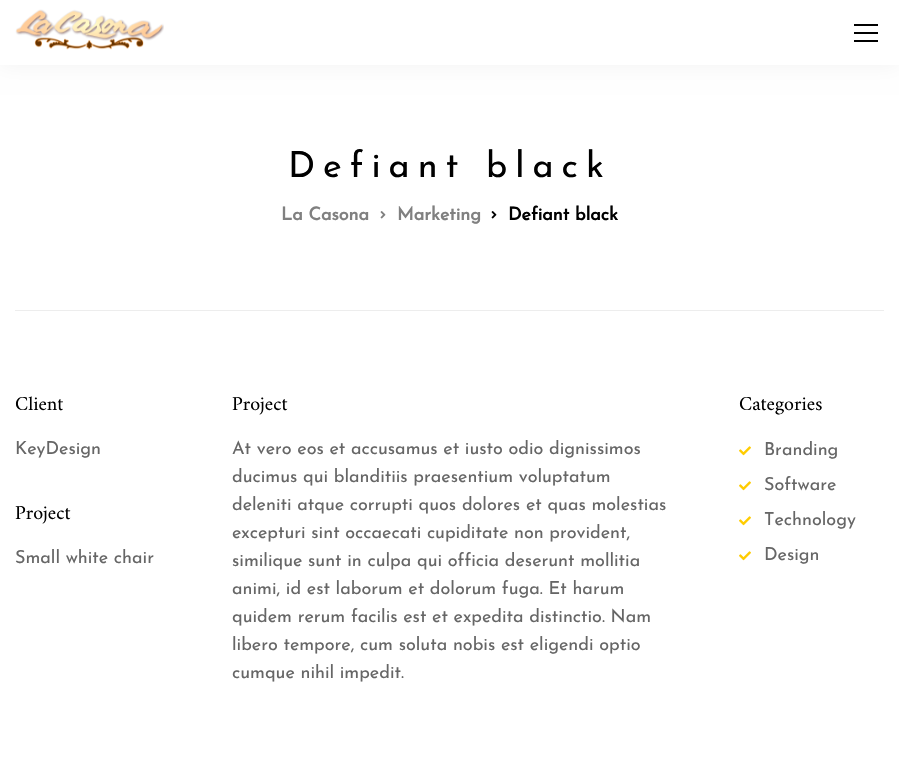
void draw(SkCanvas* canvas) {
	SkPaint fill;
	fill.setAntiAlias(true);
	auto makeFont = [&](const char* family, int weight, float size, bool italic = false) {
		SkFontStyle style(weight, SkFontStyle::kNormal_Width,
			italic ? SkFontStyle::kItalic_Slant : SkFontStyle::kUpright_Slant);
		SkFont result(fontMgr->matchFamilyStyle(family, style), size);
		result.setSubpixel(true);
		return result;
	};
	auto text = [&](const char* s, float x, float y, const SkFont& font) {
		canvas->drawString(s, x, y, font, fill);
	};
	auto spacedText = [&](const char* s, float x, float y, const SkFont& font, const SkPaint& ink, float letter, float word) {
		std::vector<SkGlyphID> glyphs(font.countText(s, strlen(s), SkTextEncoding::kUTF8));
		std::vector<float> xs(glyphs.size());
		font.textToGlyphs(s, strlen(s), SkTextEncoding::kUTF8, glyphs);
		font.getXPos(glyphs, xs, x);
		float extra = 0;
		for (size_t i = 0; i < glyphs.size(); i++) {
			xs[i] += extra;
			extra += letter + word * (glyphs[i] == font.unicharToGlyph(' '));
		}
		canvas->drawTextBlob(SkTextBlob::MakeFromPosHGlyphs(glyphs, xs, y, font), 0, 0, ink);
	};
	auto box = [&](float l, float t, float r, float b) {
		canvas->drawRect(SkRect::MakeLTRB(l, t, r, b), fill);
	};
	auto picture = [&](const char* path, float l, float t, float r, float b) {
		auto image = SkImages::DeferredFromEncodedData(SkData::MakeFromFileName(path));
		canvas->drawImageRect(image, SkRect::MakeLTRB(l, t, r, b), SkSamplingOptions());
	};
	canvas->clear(0xFFFFFFFF);
	fill.setColor(0x0D000000);
	fill.setMaskFilter(SkMaskFilter::MakeBlur(kNormal_SkBlurStyle, 10));
	canvas->drawRect(SkRect::MakeLTRB(0, 0, 899, 65), fill);
	fill.setMaskFilter(nullptr);
	fill.setColor(0xFFFFFFFF);
	box(0, 0, 899, 65);
	picture("image0.png", 15, 9, 164, 50);
	fill.setColor(0xFF000000);
	box(854, 40, 878, 42);
	box(854, 24, 878, 26);
	box(854, 32, 878, 34);
	fill.setColor(0xFFEDEDED);
	box(15, 310, 884, 311);
	picture("image1.png", 380, 211, 386, 219);
	picture("image2.png", 491, 211, 497, 219);
	picture("image3.png", 739, 446, 751, 456);
	picture("image3.png", 739, 481, 751, 491);
	picture("image3.png", 739, 516, 751, 526);
	picture("image3.png", 739, 551, 751, 561);
	auto font1 = makeFont("Josefin Sans", 100, 36);
	fill.setColor(0xFF000000);
	spacedText("Defiant black", 288, 177, font1, fill, 8, 0);
	auto font2 = makeFont("Josefin Sans", 700, 18);
	fill.setColor(0xFF808080);
	text("La Casona", 281, 220, font2);
	text("Marketing", 397, 220, font2);
	fill.setColor(0xFF000000);
	text("Defiant black", 508, 220, font2);
	auto font3 = makeFont("Amiri", 400, 20);
	text("Client", 15, 410, font3);
	auto font4 = makeFont("Josefin Sans", 100, 18);
	fill.setColor(0xFF666666);
	text("KeyDesign", 15, 454, font4);
	fill.setColor(0xFF000000);
	text("Project", 15, 519, font3);
	fill.setColor(0xFF666666);
	text("Small white chair", 15, 563, font4);
	fill.setColor(0xFF000000);
	text("Project", 232, 410, font3);
	fill.setColor(0xFF666666);
	text("At vero eos et accusamus et iusto odio dignissimos", 232, 454, font4);
	text("ducimus qui blanditiis praesentium voluptatum", 232, 482, font4);
	text("deleniti atque corrupti quos dolores et quas molestias", 232, 510, font4);
	text("excepturi sint occaecati cupiditate non provident,", 232, 538, font4);
	text("similique sunt in culpa qui officia deserunt mollitia", 232, 566, font4);
	text("animi, id est laborum et dolorum fuga. Et harum", 232, 594, font4);
	text("quidem rerum facilis est et expedita distinctio. Nam", 232, 622, font4);
	text("libero tempore, cum soluta nobis est eligendi optio", 232, 650, font4);
	text("cumque nihil impedit.", 232, 678, font4);
	fill.setColor(0xFF000000);
	text("Categories", 739, 410, font3);
	fill.setColor(0xFF666666);
	text("Branding", 764, 455, font4);
	text("Software", 764, 490, font4);
	text("Technology", 764, 525, font4);
	text("Design", 764, 560, font4);
}
